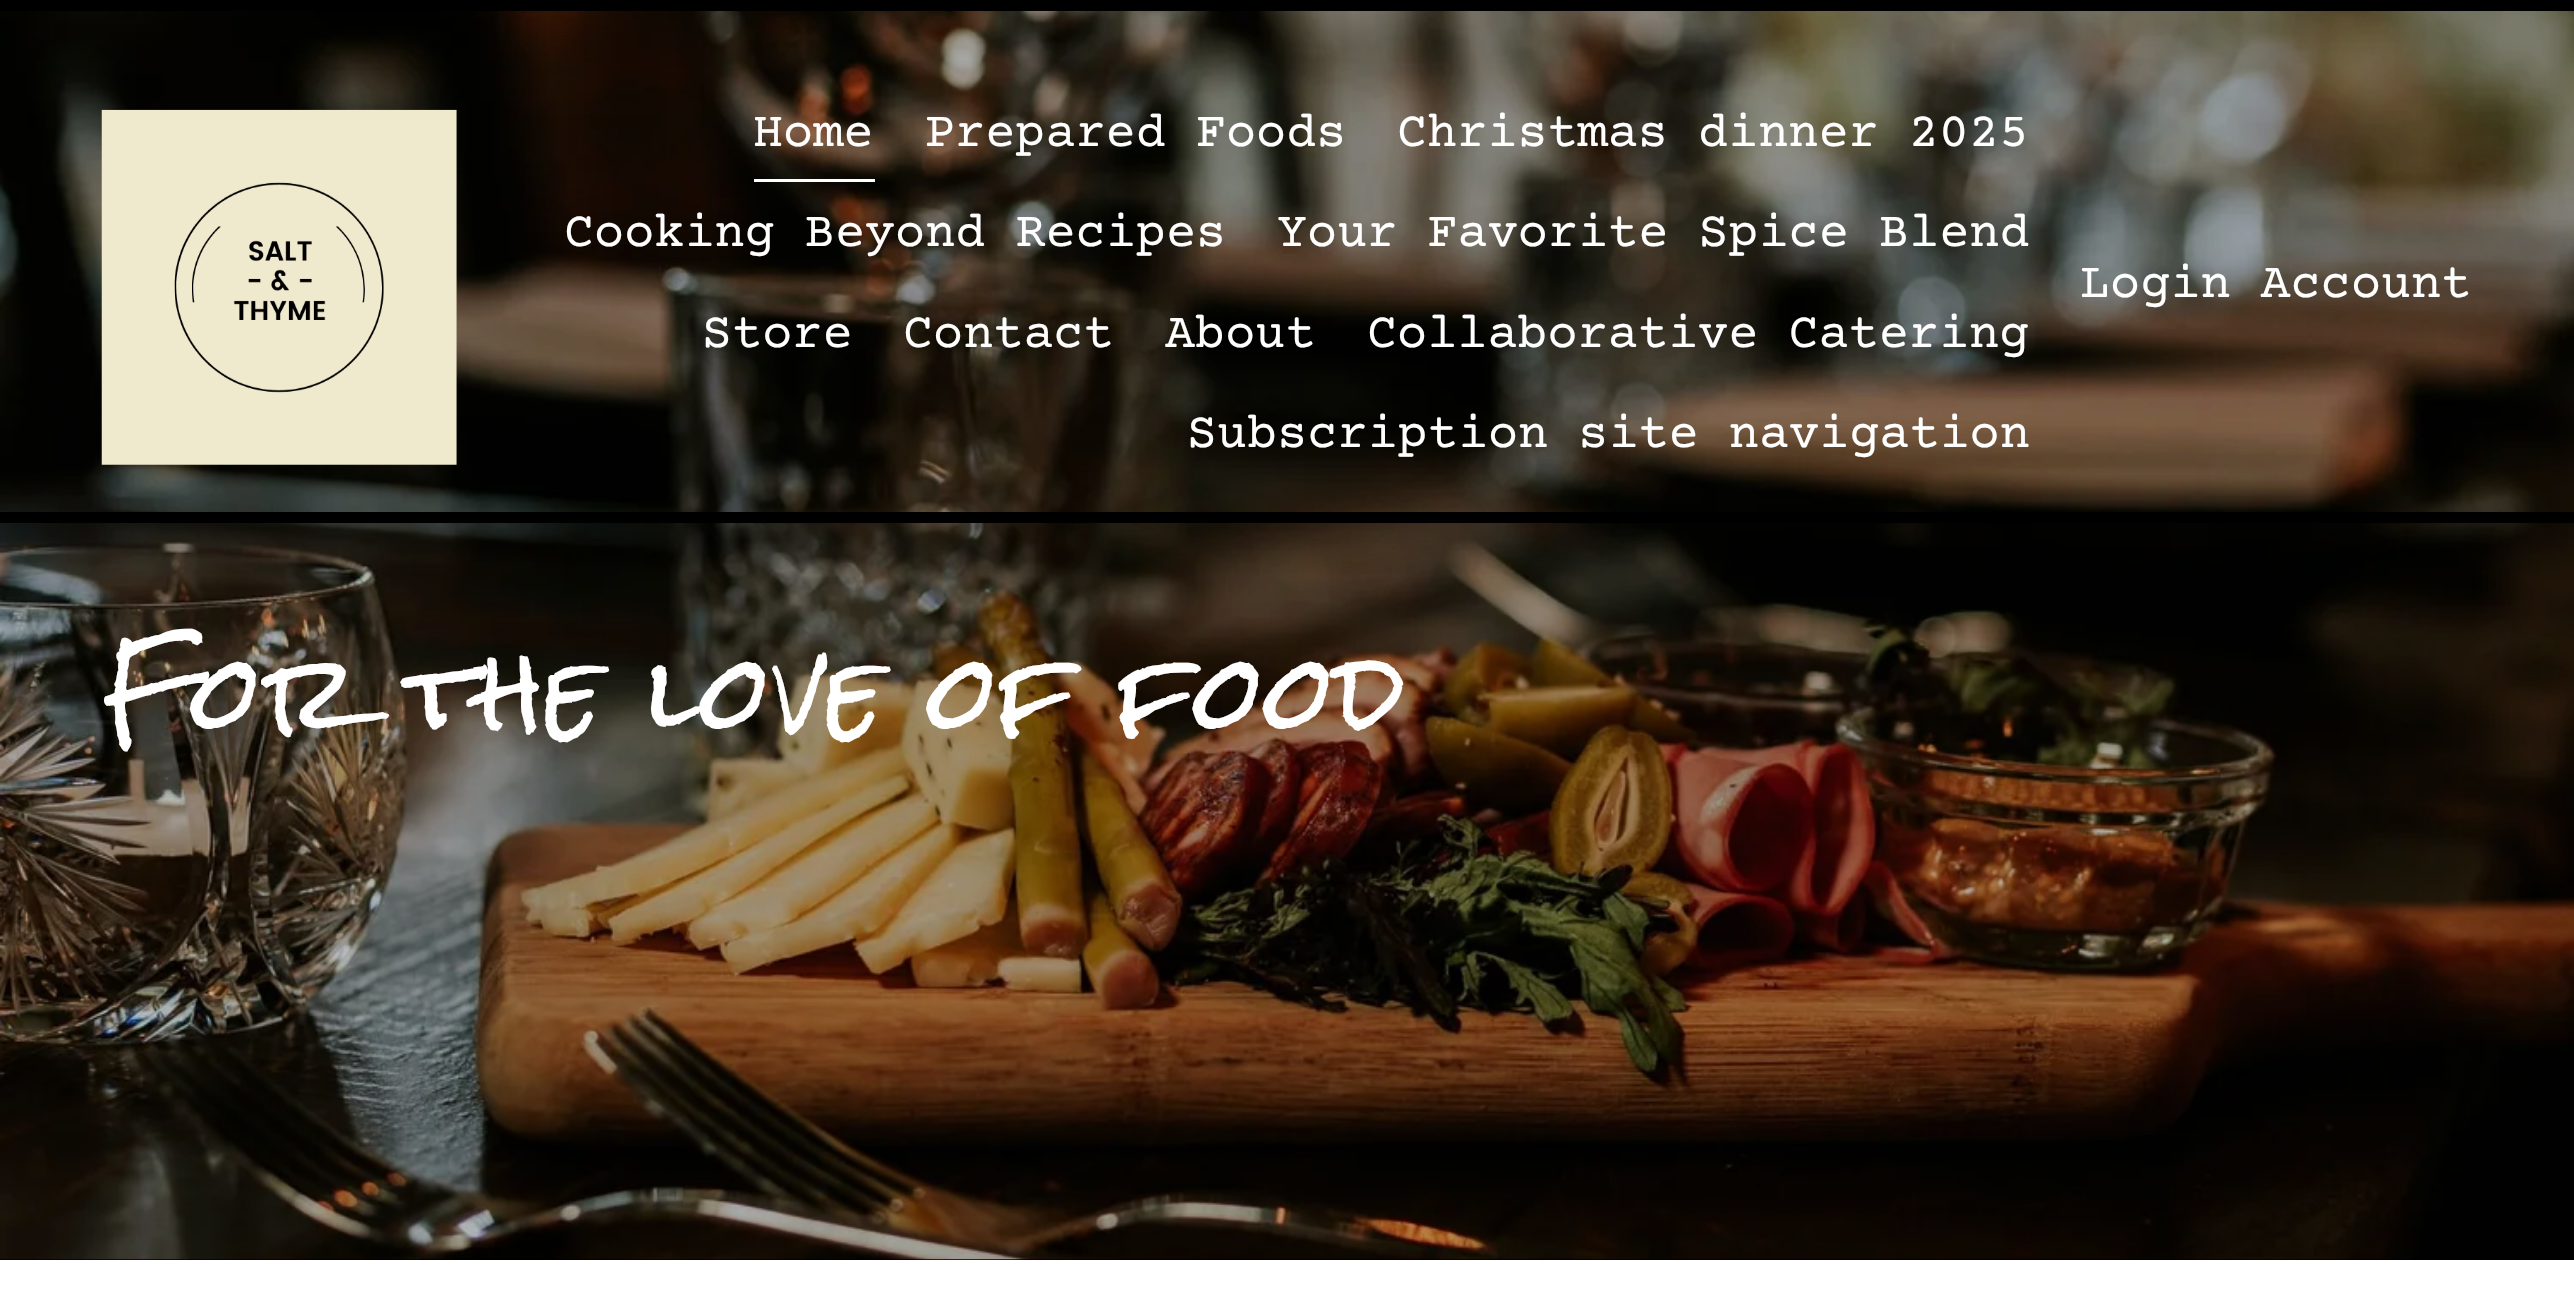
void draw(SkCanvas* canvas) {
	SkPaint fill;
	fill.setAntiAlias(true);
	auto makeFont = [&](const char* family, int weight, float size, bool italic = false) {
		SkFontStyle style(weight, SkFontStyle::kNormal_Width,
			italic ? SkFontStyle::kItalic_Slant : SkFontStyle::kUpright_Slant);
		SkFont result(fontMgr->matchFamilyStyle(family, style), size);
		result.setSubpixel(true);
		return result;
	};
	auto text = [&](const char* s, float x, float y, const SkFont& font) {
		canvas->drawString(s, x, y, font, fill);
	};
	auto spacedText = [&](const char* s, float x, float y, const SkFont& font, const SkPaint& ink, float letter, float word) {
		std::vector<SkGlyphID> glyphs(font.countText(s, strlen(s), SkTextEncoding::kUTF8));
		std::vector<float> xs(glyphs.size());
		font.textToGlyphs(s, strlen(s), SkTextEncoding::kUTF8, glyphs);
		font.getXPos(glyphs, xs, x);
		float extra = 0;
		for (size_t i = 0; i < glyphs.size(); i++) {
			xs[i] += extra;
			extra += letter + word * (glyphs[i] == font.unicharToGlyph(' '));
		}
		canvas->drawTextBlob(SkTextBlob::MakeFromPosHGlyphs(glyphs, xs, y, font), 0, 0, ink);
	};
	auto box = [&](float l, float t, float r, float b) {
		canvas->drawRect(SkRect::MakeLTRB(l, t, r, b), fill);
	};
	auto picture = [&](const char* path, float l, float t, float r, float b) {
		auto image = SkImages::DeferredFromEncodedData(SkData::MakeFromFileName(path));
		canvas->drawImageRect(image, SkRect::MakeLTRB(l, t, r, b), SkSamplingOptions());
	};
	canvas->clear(0xFFFFFFFF);
	fill.setColor(0xFF000000);
	box(0, 1259, 2574, 1260);
	picture("image1.png", 0, 11, 2574, 1260);
	canvas->save();
	canvas->clipRect(SkRect::MakeLTRB(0, 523, 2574, 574));
	fill.setColor(0x26000000);
	fill.setMaskFilter(SkMaskFilter::MakeBlur(kNormal_SkBlurStyle, 16.5f));
	canvas->drawRect(SkRect::MakeLTRB(0, 33, 2574, 556), fill);
	fill.setMaskFilter(nullptr);
	canvas->restore();
	fill.setColor(0xFF000000);
	box(0, 0, 2574, 11);
	box(0, 512, 2574, 523);
	picture("image0.png", 101, 109, 457, 465);
	fill.setColor(0xFFFFFFFF);
	box(754, 179, 875, 182);
	auto font1 = makeFont("Courier Prime", 400, 50.2f);
	text("Home", 753, 146, font1);
	text("Prepared Foods", 925, 146, font1);
	text("Christmas dinner 2025", 1397, 146, font1);
	text("Cooking Beyond Recipes", 564, 246, font1);
	text("Your Favorite Spice Blend", 1277, 246, font1);
	text("Store", 702, 347, font1);
	text("Contact", 903, 347, font1);
	text("About", 1165, 347, font1);
	text("Collaborative Catering", 1367, 347, font1);
	text("Subscription site navigation", 1187, 447, font1);
	text("Login Account", 2080, 297, font1);
	auto font2 = makeFont("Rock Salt", 400, 99.6f);
	spacedText("For the love of food", 103, 732, font2, fill, 2, 0);
}
